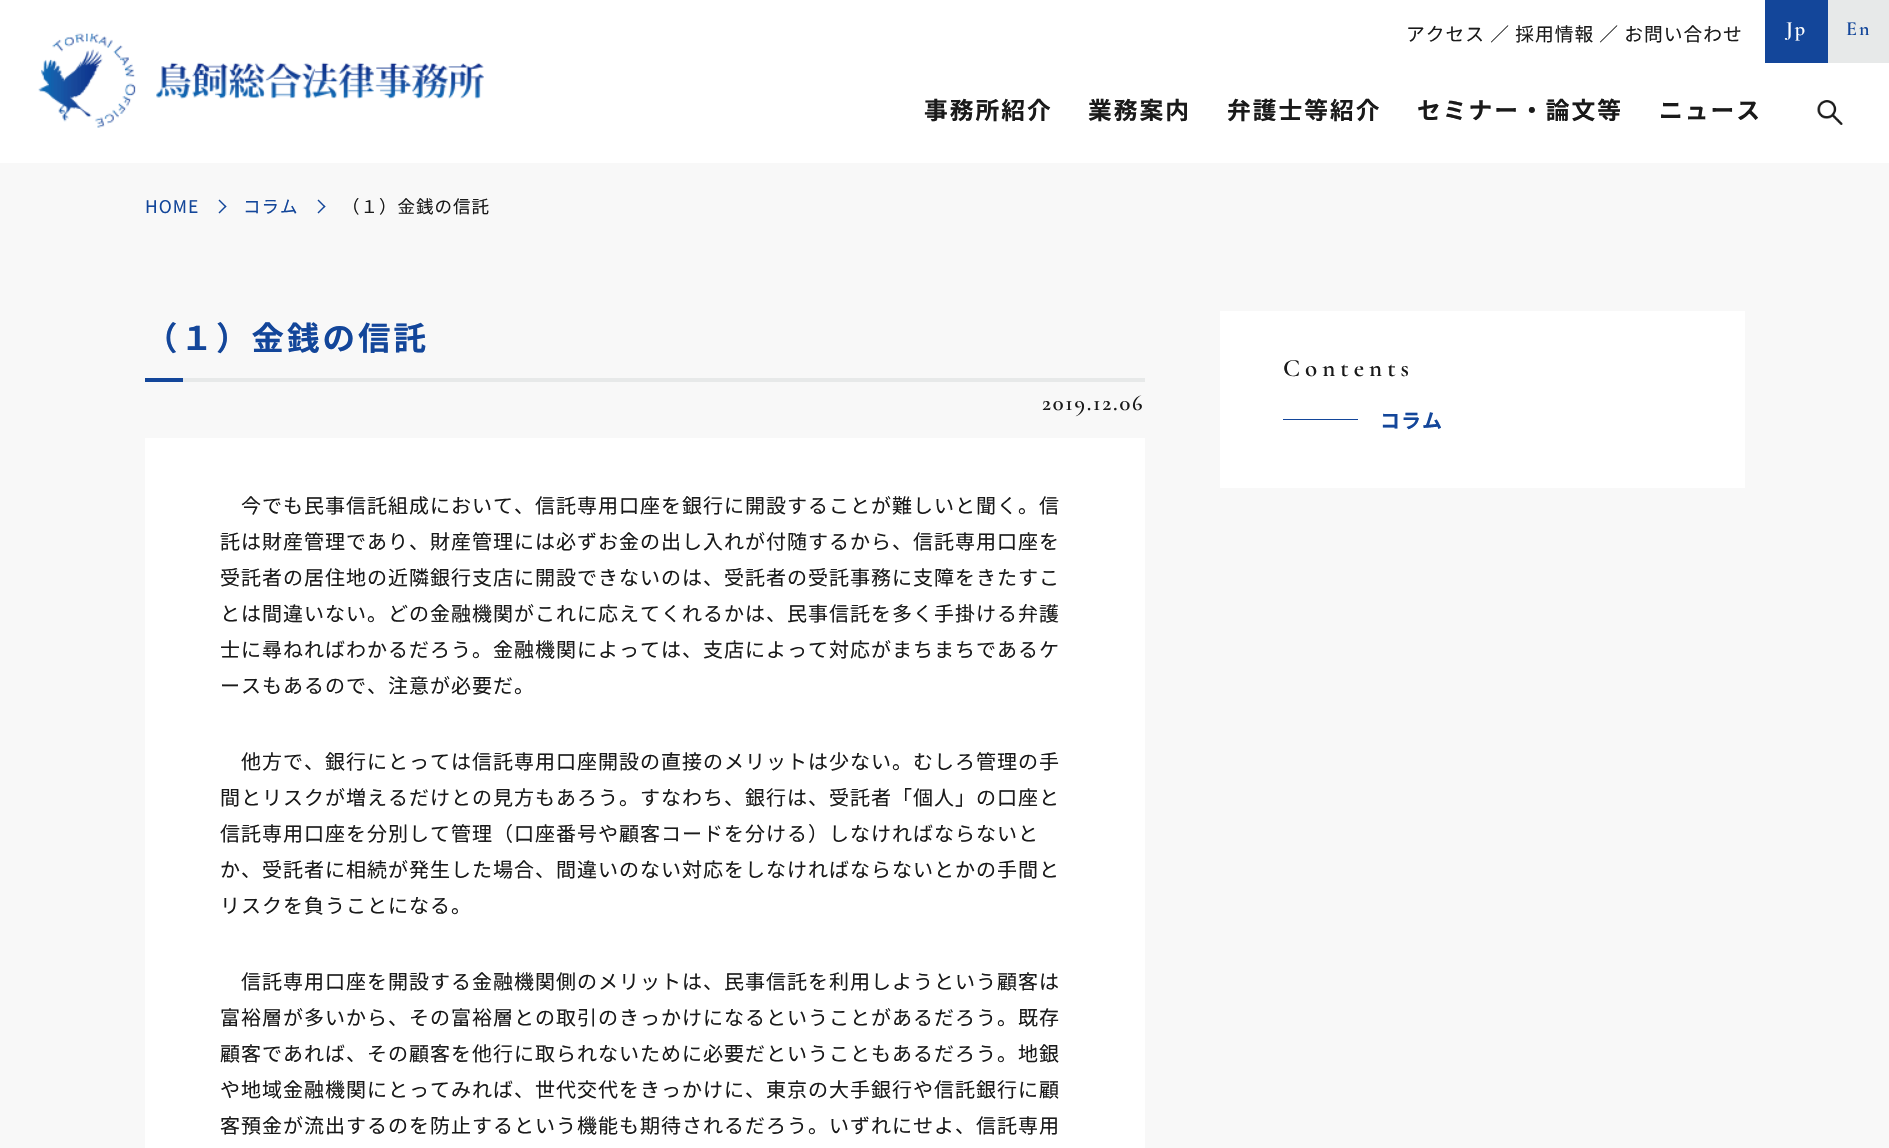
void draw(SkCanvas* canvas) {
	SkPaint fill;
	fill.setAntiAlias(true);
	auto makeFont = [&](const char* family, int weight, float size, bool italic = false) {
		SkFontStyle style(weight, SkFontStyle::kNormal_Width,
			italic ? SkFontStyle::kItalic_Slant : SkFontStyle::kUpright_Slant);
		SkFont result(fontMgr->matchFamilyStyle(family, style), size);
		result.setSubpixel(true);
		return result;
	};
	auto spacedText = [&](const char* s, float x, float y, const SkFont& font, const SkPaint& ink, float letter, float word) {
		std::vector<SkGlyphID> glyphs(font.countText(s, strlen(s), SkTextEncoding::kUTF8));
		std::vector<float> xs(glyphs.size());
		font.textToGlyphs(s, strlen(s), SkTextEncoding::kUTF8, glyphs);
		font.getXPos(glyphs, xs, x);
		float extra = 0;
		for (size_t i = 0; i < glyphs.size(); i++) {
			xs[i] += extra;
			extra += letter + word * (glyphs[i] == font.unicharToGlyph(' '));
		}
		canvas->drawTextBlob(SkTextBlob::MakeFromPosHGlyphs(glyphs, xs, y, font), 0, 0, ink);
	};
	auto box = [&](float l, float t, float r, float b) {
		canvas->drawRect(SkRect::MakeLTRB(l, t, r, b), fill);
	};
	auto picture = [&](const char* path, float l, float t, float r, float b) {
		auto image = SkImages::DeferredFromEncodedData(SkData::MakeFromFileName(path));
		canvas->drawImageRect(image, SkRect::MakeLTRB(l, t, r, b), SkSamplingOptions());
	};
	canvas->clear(0xFFF8F8F8);
	fill.setColor(0xFFFFFFFF);
	box(0, 0, 1889, 163);
	picture("image0.png", 38, 33, 484, 128);
	fill.setColor(0xFF13469A);
	box(1765, 0, 1828, 63);
	fill.setColor(0xFFE7E9E9);
	box(1828, 0, 1889, 63);
	picture("image1.png", 1817, 100, 1843, 125);
	fill.setColor(0xFF13469A);
	canvas->drawPath(SkPathBuilder().moveTo(219.5f, 199.5f).lineTo(226.5f, 206.5f).lineTo(225.5f, 207.5f).lineTo(218.5f, 200.5f).close().detach(), fill);
	canvas->drawPath(SkPathBuilder().moveTo(225.5f, 205.5f).lineTo(226.5f, 206.5f).lineTo(219.5f, 213.5f).lineTo(218.5f, 212.5f).close().detach(), fill);
	canvas->drawPath(SkPathBuilder().moveTo(318.5f, 199.5f).lineTo(325.5f, 206.5f).lineTo(324.5f, 207.5f).lineTo(317.5f, 200.5f).close().detach(), fill);
	canvas->drawPath(SkPathBuilder().moveTo(324.5f, 205.5f).lineTo(325.5f, 206.5f).lineTo(318.5f, 213.5f).lineTo(317.5f, 212.5f).close().detach(), fill);
	fill.setColor(0xFFE7E9E9);
	box(183, 378, 1145, 382);
	fill.setColor(0xFF13469A);
	box(145, 378, 183, 382);
	fill.setColor(0xFFFFFFFF);
	box(145, 438, 1145, 1148);
	box(1220, 311, 1745, 488);
	fill.setColor(0xFF13469A);
	box(1283, 419, 1358, 420);
	auto font1 = makeFont("Noto Sans JP", 400, 18.75f);
	fill.setColor(0xFF1A1A1A);
	spacedText("アクセス ／ 採用情報 ／ お問い合わせ", 1406, 41, font1, fill, 1, 0);
	auto font2 = makeFont("Cormorant Garamond", 600, 20);
	fill.setColor(0xFFFFFFFF);
	spacedText("Jp", 1786, 35, font2, fill, 2, 0);
	fill.setColor(0xFF13469A);
	spacedText("En", 1846, 35, font2, fill, 2, 0);
	auto font3 = makeFont("Noto Sans JP", 700, 23.75f);
	fill.setColor(0xFF1A1A1A);
	spacedText("事務所紹介", 924, 119, font3, fill, 2, 0);
	spacedText("業務案内", 1088, 119, font3, fill, 2, 0);
	spacedText("弁護士等紹介", 1227, 119, font3, fill, 2, 0);
	spacedText("セミナー・論文等", 1417, 119, font3, fill, 2, 0);
	spacedText("ニュース", 1659, 119, font3, fill, 2, 0);
	auto font4 = makeFont("Noto Sans JP", 400, 17.5f);
	fill.setColor(0xFF13469A);
	spacedText("HOME", 145, 213, font4, fill, 1, 0);
	spacedText("コラム", 243, 213, font4, fill, 1, 0);
	fill.setColor(0xFF1A1A1A);
	spacedText("（１）金銭の信託", 342, 213, font4, fill, 1, 0);
	auto font5 = makeFont("Noto Sans JP", 700, 32.5f);
	fill.setColor(0xFF13469A);
	spacedText("（１）金銭の信託", 145, 350, font5, fill, 3, 0);
	auto font6 = makeFont("Cormorant Garamond", 600, 22.5f);
	fill.setColor(0xFF1A1A1A);
	spacedText("2019.12.06", 1042, 410, font6, fill, 1.75f, 0);
	auto font7 = makeFont("Noto Sans JP", 400, 20);
	spacedText("今でも民事信託組成において、信託専用口座を銀行に開設することが難しいと聞く。信", 241, 513, font7, fill, 1, 0);
	spacedText("託は財産管理であり、財産管理には必ずお金の出し入れが付随するから、信託専用口座を", 220, 549, font7, fill, 1, 0);
	spacedText("受託者の居住地の近隣銀行支店に開設できないのは、受託者の受託事務に支障をきたすこ", 220, 585, font7, fill, 1, 0);
	spacedText("とは間違いない。どの金融機関がこれに応えてくれるかは、民事信託を多く手掛ける弁護", 220, 621, font7, fill, 1, 0);
	spacedText("士に尋ねればわかるだろう。金融機関によっては、支店によって対応がまちまちであるケ", 220, 657, font7, fill, 1, 0);
	spacedText("ースもあるので、注意が必要だ。", 220, 693, font7, fill, 1, 0);
	spacedText("他方で、銀行にとっては信託専用口座開設の直接のメリットは少ない。むしろ管理の手", 241, 769, font7, fill, 1, 0);
	spacedText("間とリスクが増えるだけとの見方もあろう。すなわち、銀行は、受託者「個人」の口座と", 220, 805, font7, fill, 1, 0);
	spacedText("信託専用口座を分別して管理（口座番号や顧客コードを分ける）しなければならないと", 220, 841, font7, fill, 1, 0);
	spacedText("か、受託者に相続が発生した場合、間違いのない対応をしなければならないとかの手間と", 220, 877, font7, fill, 1, 0);
	spacedText("リスクを負うことになる。", 220, 913, font7, fill, 1, 0);
	spacedText("信託専用口座を開設する金融機関側のメリットは、民事信託を利用しようという顧客は", 241, 989, font7, fill, 1, 0);
	spacedText("富裕層が多いから、その富裕層との取引のきっかけになるということがあるだろう。既存", 220, 1025, font7, fill, 1, 0);
	spacedText("顧客であれば、その顧客を他行に取られないために必要だということもあるだろう。地銀", 220, 1061, font7, fill, 1, 0);
	spacedText("や地域金融機関にとってみれば、世代交代をきっかけに、東京の大手銀行や信託銀行に顧", 220, 1097, font7, fill, 1, 0);
	spacedText("客預金が流出するのを防止するという機能も期待されるだろう。いずれにせよ、信託専用", 220, 1133, font7, fill, 1, 0);
	auto font8 = makeFont("Cormorant Garamond", 600, 25);
	spacedText("Contents", 1283, 376, font8, fill, 5, 0);
	auto font9 = makeFont("Noto Sans JP", 700, 20);
	fill.setColor(0xFF13469A);
	spacedText("コラム", 1380, 428, font9, fill, 1, 0);
}
